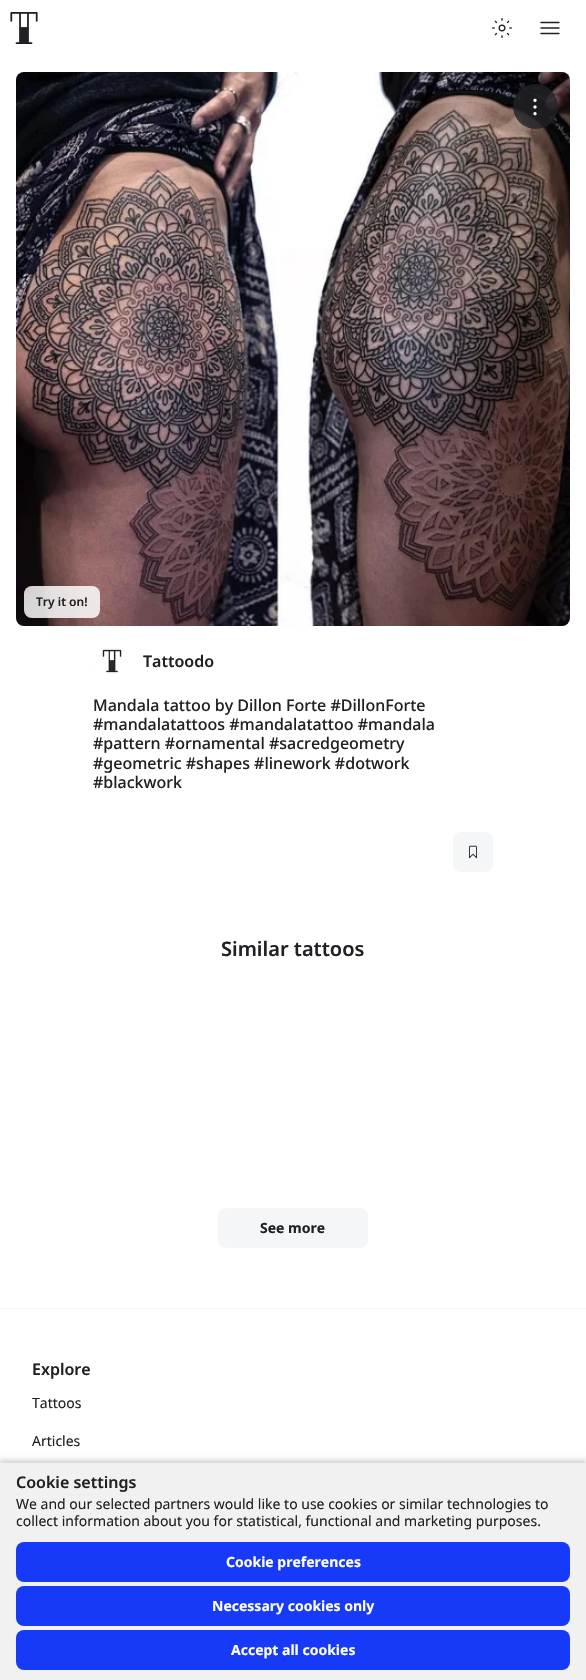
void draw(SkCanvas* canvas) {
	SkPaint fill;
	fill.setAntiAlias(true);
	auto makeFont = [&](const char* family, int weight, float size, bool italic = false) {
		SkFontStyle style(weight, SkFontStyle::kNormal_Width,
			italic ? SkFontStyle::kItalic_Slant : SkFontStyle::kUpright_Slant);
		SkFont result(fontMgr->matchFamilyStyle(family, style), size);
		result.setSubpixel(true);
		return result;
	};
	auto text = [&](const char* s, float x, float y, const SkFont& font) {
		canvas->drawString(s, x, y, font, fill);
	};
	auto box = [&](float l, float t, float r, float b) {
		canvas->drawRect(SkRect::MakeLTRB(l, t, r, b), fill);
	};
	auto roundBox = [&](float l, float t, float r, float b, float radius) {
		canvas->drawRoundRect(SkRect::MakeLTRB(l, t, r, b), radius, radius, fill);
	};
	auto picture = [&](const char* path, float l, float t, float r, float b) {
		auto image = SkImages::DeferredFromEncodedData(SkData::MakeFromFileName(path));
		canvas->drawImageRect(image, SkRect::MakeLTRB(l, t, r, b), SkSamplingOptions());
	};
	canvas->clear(0xFFFFFFFF);
	picture("image0.png", 10, 12, 38, 44);
	picture("image1.png", 492, 18, 512, 38);
	fill.setStyle(SkPaint::kStroke_Style);
	fill.setStrokeWidth(1.4f);
	fill.setStrokeCap(SkPaint::kRound_Cap);
	fill.setStrokeJoin(SkPaint::kRound_Join);
	fill.setColor(0xFF202125);
	canvas->drawPath(SkPathBuilder().moveTo(541, 33.5f).lineTo(559, 33.5f).moveTo(541, 28).lineTo(559, 28).moveTo(541, 22.5f).lineTo(559, 22.5f).detach(), fill);
	fill.setStyle(SkPaint::kFill_Style);
	fill.setColor(0xFFEBEBEB);
	roundBox(16, 72, 570, 626, 8);
	picture("image2.png", 16, 72, 570, 626);
	fill.setColor(0xCC202125);
	canvas->drawCircle(535.5f, 106.5f, 22.5f, fill);
	picture("image3.png", 533, 98, 537, 116);
	fill.setColor(0xCCFFFFFF);
	roundBox(24, 586, 100, 618, 8);
	{
		const SkColor colors[] = {0x30FFFFFF, 0x30FFFFFF, 0x33173AF8, 0x33FF4040, 0x30FFFFFF, 0x30FFFFFF};
		const float stops[] = {0, 0.25f, 0.42f, 0.58f, 0.75f, 1};
		const SkPoint ends[] = {{-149, 521}, {45, 683}};
		fill.setShader(SkGradientShader::MakeLinear(ends, colors, stops, 6, SkTileMode::kClamp));
		fill.setAlpha(255);
	}
	roundBox(24, 586, 100, 618, 8);
	fill.setShader(nullptr);
	fill.setColor(0xFFF5F6F7);
	canvas->drawCircle(112, 661, 19, fill);
	picture("image4.png", 93, 642, 131, 680);
	roundBox(453, 832, 493, 872, 8);
	picture("image5.png", 468, 845, 478, 859);
	roundBox(218, 1208, 368, 1248, 8);
	fill.setColor(0xFFF5F5F5);
	box(0, 1308, 586, 1309);
	fill.setColor(0x0F000000);
	fill.setMaskFilter(SkMaskFilter::MakeBlur(kNormal_SkBlurStyle, 2));
	canvas->drawRect(SkRect::MakeLTRB(0, 1463, 586, 1680), fill);
	fill.setMaskFilter(nullptr);
	fill.setColor(0x1F000000);
	fill.setMaskFilter(SkMaskFilter::MakeBlur(kNormal_SkBlurStyle, 2));
	canvas->drawRect(SkRect::MakeLTRB(0, 1459, 586, 1676), fill);
	fill.setMaskFilter(nullptr);
	fill.setColor(0xFFF1F1F1);
	box(0, 1463, 586, 1680);
	fill.setColor(0xFF173AF8);
	roundBox(16, 1542, 570, 1582, 8);
	roundBox(16, 1586, 570, 1626, 8);
	roundBox(16, 1630, 570, 1670, 8);
	auto font1 = makeFont("Noto Sans", 600, 12);
	fill.setColor(0xFF202125);
	text("Try it on!", 36, 606, font1);
	auto font2 = makeFont("Noto Sans", 600, 16);
	text("Tattoodo", 143, 667, font2);
	auto font3 = makeFont("Noto Sans", 500, 16);
	text("Mandala tattoo by Dillon Forte #DillonForte", 93, 711, font3);
	text("#mandalatattoos #mandalatattoo #mandala", 93, 730, font3);
	text("#pattern #ornamental #sacredgeometry", 93, 749, font3);
	text("#geometric #shapes #linework #dotwork", 93, 769, font3);
	text("#blackwork", 93, 788, font3);
	auto font4 = makeFont("Noto Sans", 600, 20);
	text("Similar tattoos", 221, 956, font4);
	auto font5 = makeFont("Noto Sans", 700, 14);
	text("See more", 260, 1233, font5);
	text("Explore", 32, 1375, font2);
	auto font6 = makeFont("Noto Sans", 400, 14);
	text("Tattoos", 32, 1408, font6);
	text("Articles", 32, 1446, font6);
	text("Cookie settings", 16, 1488, font2);
	text("We and our selected partners would like to use cookies or similar technologies to", 16, 1509, font6);
	text("collect information about you for statistical, functional and marketing purposes.", 16, 1526, font6);
	fill.setColor(0xFFFFFFFF);
	text("Cookie preferences", 226, 1567, font5);
	text("Necessary cookies only", 212, 1611, font5);
	text("Accept all cookies", 231, 1655, font5);
}
